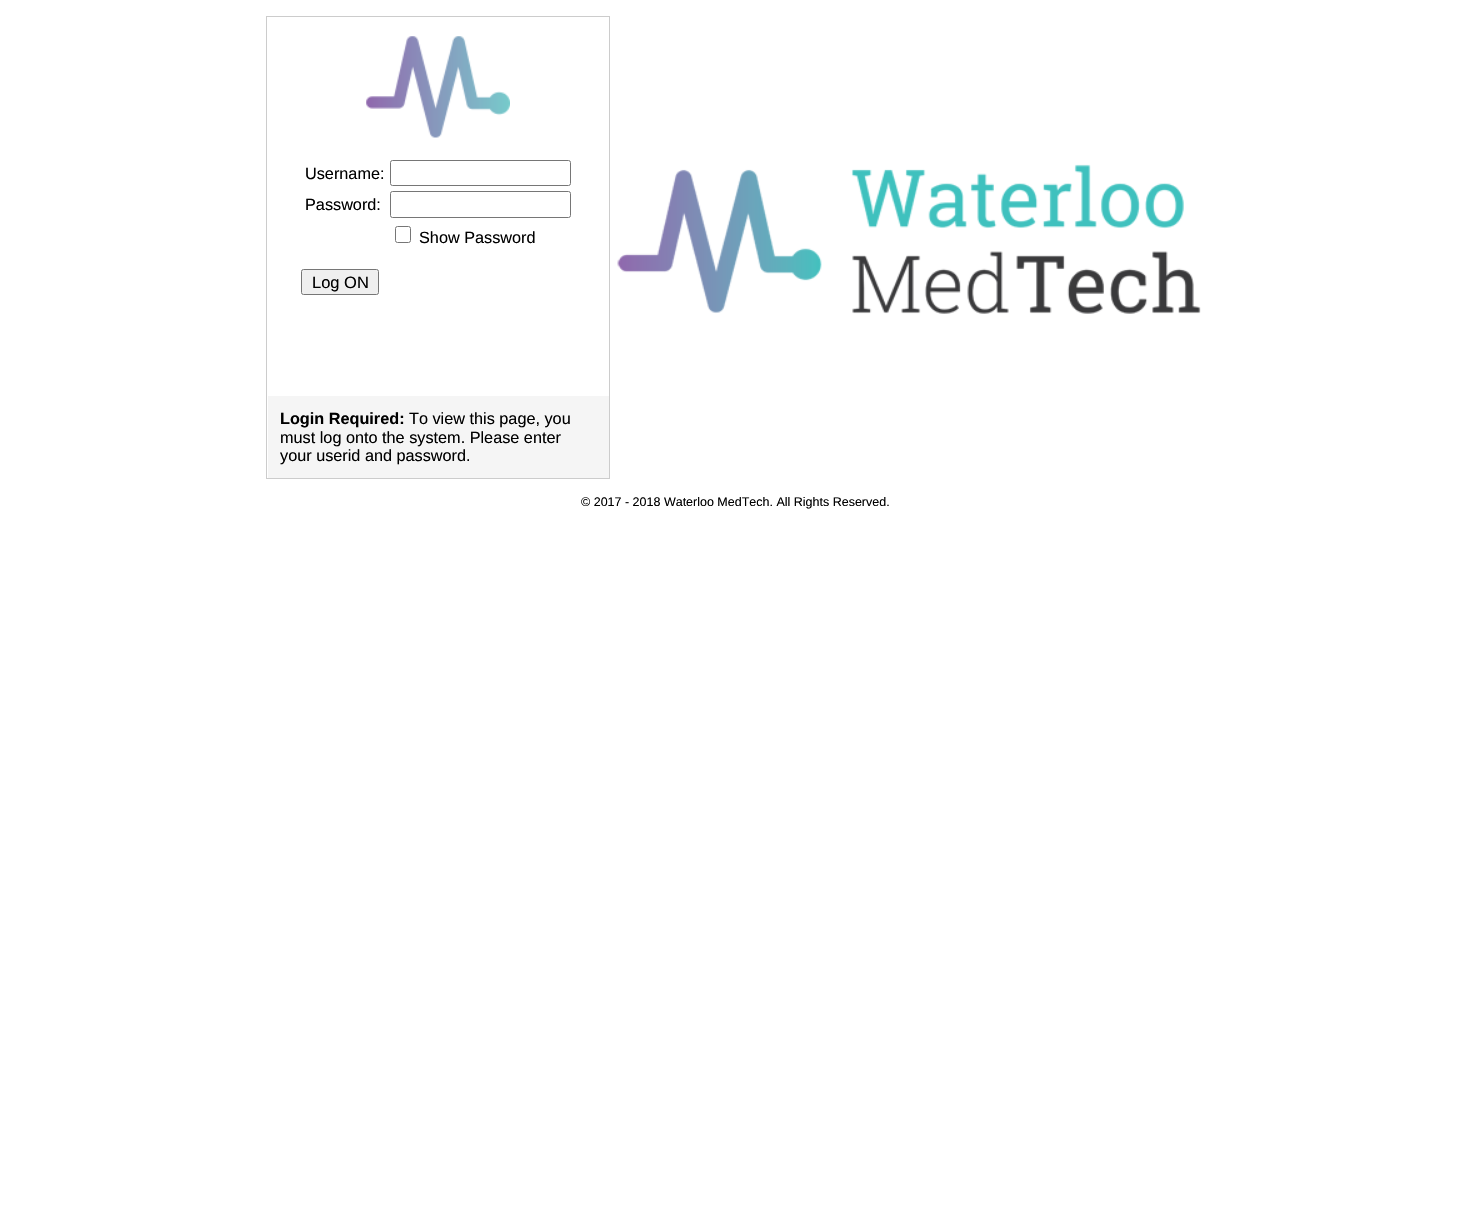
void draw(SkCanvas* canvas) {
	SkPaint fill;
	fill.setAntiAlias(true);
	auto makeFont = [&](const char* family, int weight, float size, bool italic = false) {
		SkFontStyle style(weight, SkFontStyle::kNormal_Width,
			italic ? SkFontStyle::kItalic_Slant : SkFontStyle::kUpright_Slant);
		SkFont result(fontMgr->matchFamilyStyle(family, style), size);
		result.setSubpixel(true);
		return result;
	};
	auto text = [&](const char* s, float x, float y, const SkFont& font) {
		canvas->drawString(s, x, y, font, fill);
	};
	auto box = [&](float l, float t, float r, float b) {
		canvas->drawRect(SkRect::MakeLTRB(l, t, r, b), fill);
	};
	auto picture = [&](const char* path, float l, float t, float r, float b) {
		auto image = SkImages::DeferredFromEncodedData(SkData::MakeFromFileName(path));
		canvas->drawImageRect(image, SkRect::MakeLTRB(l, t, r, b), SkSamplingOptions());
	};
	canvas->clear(0xFFFFFFFF);
	fill.setStyle(SkPaint::kStroke_Style);
	fill.setStrokeWidth(1);
	fill.setColor(0xFFCCCCCC);
	canvas->drawRect(SkRect::MakeLTRB(266.5f, 16.5f, 609.5f, 478.5f), fill);
	picture("image0.png", 366, 36, 510, 138);
	fill.setColor(0xFF767676);
	canvas->drawRoundRect(SkRect::MakeLTRB(390.5f, 160.5f, 570.5f, 185.5f), 2, 2, fill);
	canvas->drawRoundRect(SkRect::MakeLTRB(390.5f, 191.5f, 570.5f, 217.5f), 2, 2, fill);
	canvas->drawRoundRect(SkRect::MakeLTRB(395.5f, 226.5f, 410.5f, 242.5f), 2, 2, fill);
	fill.setStyle(SkPaint::kFill_Style);
	fill.setColor(0xFFEFEFEF);
	canvas->drawRoundRect(SkRect::MakeLTRB(301.5f, 269.5f, 378.5f, 294.5f), 2, 2, fill);
	fill.setStyle(SkPaint::kStroke_Style);
	fill.setColor(0xFF767676);
	canvas->drawRoundRect(SkRect::MakeLTRB(301.5f, 269.5f, 378.5f, 294.5f), 2, 2, fill);
	fill.setStyle(SkPaint::kFill_Style);
	fill.setColor(0xFFF5F5F5);
	box(268, 396, 609, 478);
	picture("image1.png", 617, 164, 1201, 314);
	auto font1 = makeFont("Liberation Sans", 400, 16.25f);
	fill.setColor(0xFF000000);
	text("Username:", 305, 179, font1);
	text("Password:", 305, 210, font1);
	text("Show Password", 419, 243, font1);
	auto font2 = makeFont("Liberation Sans", 400, 16.5f);
	text("Log ON", 312, 288, font2);
	auto font3 = makeFont("Liberation Sans", 700, 16.25f);
	text("Login Required:", 280, 424, font3);
	text("To view this page, you", 409, 424, font1);
	text("must log onto the system. Please enter", 280, 443, font1);
	text("your userid and password.", 280, 461, font1);
	auto font4 = makeFont("Liberation Sans", 400, 12.5f);
	text("© 2017 - 2018 Waterloo MedTech. All Rights Reserved.", 581, 506, font4);
}
